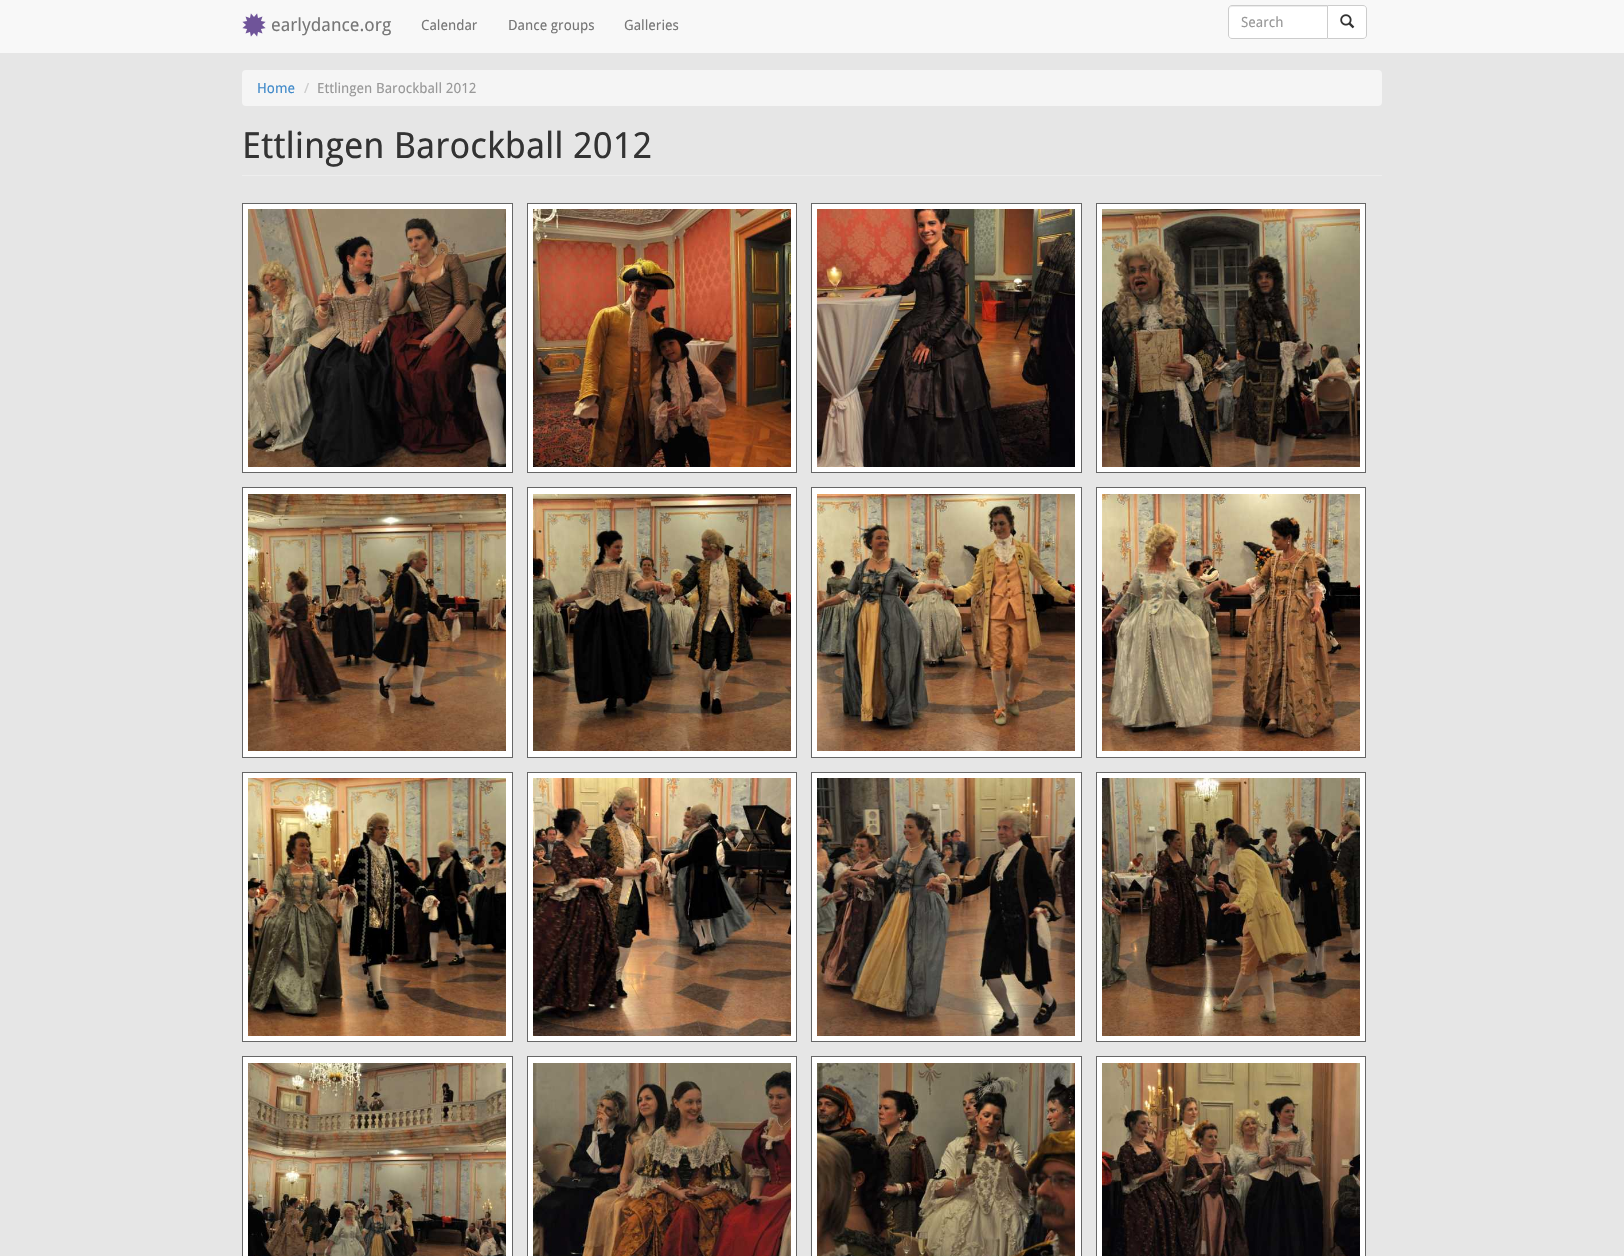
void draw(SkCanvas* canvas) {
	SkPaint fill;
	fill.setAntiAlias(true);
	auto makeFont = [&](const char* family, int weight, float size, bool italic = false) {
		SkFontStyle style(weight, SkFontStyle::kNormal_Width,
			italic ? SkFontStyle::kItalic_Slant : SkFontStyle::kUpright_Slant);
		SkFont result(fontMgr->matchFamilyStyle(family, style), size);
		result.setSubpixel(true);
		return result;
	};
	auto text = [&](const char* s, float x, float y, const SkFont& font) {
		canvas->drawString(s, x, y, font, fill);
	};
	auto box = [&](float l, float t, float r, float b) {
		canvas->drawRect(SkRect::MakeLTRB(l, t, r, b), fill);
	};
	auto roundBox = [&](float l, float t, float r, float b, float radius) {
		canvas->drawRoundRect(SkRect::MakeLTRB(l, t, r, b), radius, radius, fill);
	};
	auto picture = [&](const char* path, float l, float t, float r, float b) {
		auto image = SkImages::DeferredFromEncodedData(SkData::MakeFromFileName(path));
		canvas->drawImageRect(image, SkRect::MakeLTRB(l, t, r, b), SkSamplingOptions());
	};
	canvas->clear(0xFFE6E6E6);
	fill.setColor(0xFFF8F8F8);
	box(0, 0, 1624, 53);
	picture("image0.png", 242, 13, 266, 37);
	fill.setColor(0xFFFFFFFF);
	canvas->drawPath(SkPathBuilder().moveTo(1327.5f, 5.5f).lineTo(1363, 5.5f).cubicTo(1365, 5.5f, 1366.5f, 7, 1366.5f, 9).lineTo(1366.5f, 35).cubicTo(1366.5f, 37, 1365, 38.5f, 1363, 38.5f).lineTo(1327.5f, 38.5f).close().detach(), fill);
	fill.setStyle(SkPaint::kStroke_Style);
	fill.setStrokeWidth(1);
	fill.setColor(0xFFCCCCCC);
	canvas->drawPath(SkPathBuilder().moveTo(1327.5f, 5.5f).lineTo(1363, 5.5f).cubicTo(1365, 5.5f, 1366.5f, 7, 1366.5f, 9).lineTo(1366.5f, 35).cubicTo(1366.5f, 37, 1365, 38.5f, 1363, 38.5f).lineTo(1327.5f, 38.5f).close().detach(), fill);
	fill.setStyle(SkPaint::kFill_Style);
	fill.setColor(0xFFFFFFFF);
	canvas->drawPath(SkPathBuilder().moveTo(1232, 5).lineTo(1328, 5).lineTo(1328, 39).lineTo(1232, 39).cubicTo(1230, 39, 1228, 37, 1228, 35).lineTo(1228, 9).cubicTo(1228, 7, 1230, 5, 1232, 5).close().detach(), fill);
	fill.setColor(0xFFECECEC);
	canvas->drawPath(SkPathBuilder().moveTo(1232, 7).lineTo(1327, 7).lineTo(1327, 6).lineTo(1232, 6).cubicTo(1230, 6, 1229, 7, 1229, 9).lineTo(1229, 10).cubicTo(1229, 8, 1230, 7, 1232, 7).close().detach(), fill);
	fill.setStyle(SkPaint::kStroke_Style);
	fill.setColor(0xFFCCCCCC);
	canvas->drawPath(SkPathBuilder().moveTo(1232, 5.5f).lineTo(1327.5f, 5.5f).lineTo(1327.5f, 38.5f).lineTo(1232, 38.5f).cubicTo(1230, 38.5f, 1228.5f, 37, 1228.5f, 35).lineTo(1228.5f, 9).cubicTo(1228.5f, 7, 1230, 5.5f, 1232, 5.5f).close().detach(), fill);
	picture("image1.png", 1340, 14, 1355, 29);
	fill.setStyle(SkPaint::kFill_Style);
	fill.setColor(0xFFF5F5F5);
	roundBox(242, 70, 1382, 106, 4);
	fill.setColor(0xFFEEEEEE);
	box(242, 175, 1382, 176);
	fill.setColor(0xFFFFFFFF);
	canvas->drawRect(SkRect::MakeLTRB(242.5f, 203.5f, 512.5f, 472.5f), fill);
	fill.setStyle(SkPaint::kStroke_Style);
	fill.setColor(0xFF666666);
	canvas->drawRect(SkRect::MakeLTRB(242.5f, 203.5f, 512.5f, 472.5f), fill);
	picture("image2.png", 248, 209, 506, 467);
	fill.setStyle(SkPaint::kFill_Style);
	fill.setColor(0xFFFFFFFF);
	canvas->drawRect(SkRect::MakeLTRB(527.5f, 203.5f, 796.5f, 472.5f), fill);
	fill.setStyle(SkPaint::kStroke_Style);
	fill.setColor(0xFF666666);
	canvas->drawRect(SkRect::MakeLTRB(527.5f, 203.5f, 796.5f, 472.5f), fill);
	picture("image3.png", 533, 209, 791, 467);
	fill.setStyle(SkPaint::kFill_Style);
	fill.setColor(0xFFFFFFFF);
	canvas->drawRect(SkRect::MakeLTRB(811.5f, 203.5f, 1081.5f, 472.5f), fill);
	fill.setStyle(SkPaint::kStroke_Style);
	fill.setColor(0xFF666666);
	canvas->drawRect(SkRect::MakeLTRB(811.5f, 203.5f, 1081.5f, 472.5f), fill);
	picture("image4.png", 817, 209, 1075, 467);
	fill.setStyle(SkPaint::kFill_Style);
	fill.setColor(0xFFFFFFFF);
	canvas->drawRect(SkRect::MakeLTRB(1096.5f, 203.5f, 1365.5f, 472.5f), fill);
	fill.setStyle(SkPaint::kStroke_Style);
	fill.setColor(0xFF666666);
	canvas->drawRect(SkRect::MakeLTRB(1096.5f, 203.5f, 1365.5f, 472.5f), fill);
	picture("image5.png", 1102, 209, 1360, 467);
	fill.setStyle(SkPaint::kFill_Style);
	fill.setColor(0xFFFFFFFF);
	canvas->drawRect(SkRect::MakeLTRB(242.5f, 487.5f, 512.5f, 757.5f), fill);
	fill.setStyle(SkPaint::kStroke_Style);
	fill.setColor(0xFF666666);
	canvas->drawRect(SkRect::MakeLTRB(242.5f, 487.5f, 512.5f, 757.5f), fill);
	picture("image6.png", 248, 494, 506, 751);
	fill.setStyle(SkPaint::kFill_Style);
	fill.setColor(0xFFFFFFFF);
	canvas->drawRect(SkRect::MakeLTRB(527.5f, 487.5f, 796.5f, 757.5f), fill);
	fill.setStyle(SkPaint::kStroke_Style);
	fill.setColor(0xFF666666);
	canvas->drawRect(SkRect::MakeLTRB(527.5f, 487.5f, 796.5f, 757.5f), fill);
	picture("image7.png", 533, 494, 791, 751);
	fill.setStyle(SkPaint::kFill_Style);
	fill.setColor(0xFFFFFFFF);
	canvas->drawRect(SkRect::MakeLTRB(811.5f, 487.5f, 1081.5f, 757.5f), fill);
	fill.setStyle(SkPaint::kStroke_Style);
	fill.setColor(0xFF666666);
	canvas->drawRect(SkRect::MakeLTRB(811.5f, 487.5f, 1081.5f, 757.5f), fill);
	picture("image8.png", 817, 494, 1075, 751);
	fill.setStyle(SkPaint::kFill_Style);
	fill.setColor(0xFFFFFFFF);
	canvas->drawRect(SkRect::MakeLTRB(1096.5f, 487.5f, 1365.5f, 757.5f), fill);
	fill.setStyle(SkPaint::kStroke_Style);
	fill.setColor(0xFF666666);
	canvas->drawRect(SkRect::MakeLTRB(1096.5f, 487.5f, 1365.5f, 757.5f), fill);
	picture("image9.png", 1102, 494, 1360, 751);
	fill.setStyle(SkPaint::kFill_Style);
	fill.setColor(0xFFFFFFFF);
	canvas->drawRect(SkRect::MakeLTRB(242.5f, 772.5f, 512.5f, 1041.5f), fill);
	fill.setStyle(SkPaint::kStroke_Style);
	fill.setColor(0xFF666666);
	canvas->drawRect(SkRect::MakeLTRB(242.5f, 772.5f, 512.5f, 1041.5f), fill);
	picture("image10.png", 248, 778, 506, 1036);
	fill.setStyle(SkPaint::kFill_Style);
	fill.setColor(0xFFFFFFFF);
	canvas->drawRect(SkRect::MakeLTRB(527.5f, 772.5f, 796.5f, 1041.5f), fill);
	fill.setStyle(SkPaint::kStroke_Style);
	fill.setColor(0xFF666666);
	canvas->drawRect(SkRect::MakeLTRB(527.5f, 772.5f, 796.5f, 1041.5f), fill);
	picture("image11.png", 533, 778, 791, 1036);
	fill.setStyle(SkPaint::kFill_Style);
	fill.setColor(0xFFFFFFFF);
	canvas->drawRect(SkRect::MakeLTRB(811.5f, 772.5f, 1081.5f, 1041.5f), fill);
	fill.setStyle(SkPaint::kStroke_Style);
	fill.setColor(0xFF666666);
	canvas->drawRect(SkRect::MakeLTRB(811.5f, 772.5f, 1081.5f, 1041.5f), fill);
	picture("image12.png", 817, 778, 1075, 1036);
	fill.setStyle(SkPaint::kFill_Style);
	fill.setColor(0xFFFFFFFF);
	canvas->drawRect(SkRect::MakeLTRB(1096.5f, 772.5f, 1365.5f, 1041.5f), fill);
	fill.setStyle(SkPaint::kStroke_Style);
	fill.setColor(0xFF666666);
	canvas->drawRect(SkRect::MakeLTRB(1096.5f, 772.5f, 1365.5f, 1041.5f), fill);
	picture("image13.png", 1102, 778, 1360, 1036);
	fill.setStyle(SkPaint::kFill_Style);
	fill.setColor(0xFFFFFFFF);
	canvas->drawRect(SkRect::MakeLTRB(242.5f, 1056.5f, 512.5f, 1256.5f), fill);
	fill.setStyle(SkPaint::kStroke_Style);
	fill.setColor(0xFF666666);
	canvas->drawRect(SkRect::MakeLTRB(242.5f, 1056.5f, 512.5f, 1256.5f), fill);
	picture("image14.png", 248, 1063, 506, 1256);
	fill.setStyle(SkPaint::kFill_Style);
	fill.setColor(0xFFFFFFFF);
	canvas->drawRect(SkRect::MakeLTRB(527.5f, 1056.5f, 796.5f, 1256.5f), fill);
	fill.setStyle(SkPaint::kStroke_Style);
	fill.setColor(0xFF666666);
	canvas->drawRect(SkRect::MakeLTRB(527.5f, 1056.5f, 796.5f, 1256.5f), fill);
	picture("image15.png", 533, 1063, 791, 1256);
	fill.setStyle(SkPaint::kFill_Style);
	fill.setColor(0xFFFFFFFF);
	canvas->drawRect(SkRect::MakeLTRB(811.5f, 1056.5f, 1081.5f, 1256.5f), fill);
	fill.setStyle(SkPaint::kStroke_Style);
	fill.setColor(0xFF666666);
	canvas->drawRect(SkRect::MakeLTRB(811.5f, 1056.5f, 1081.5f, 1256.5f), fill);
	picture("image16.png", 817, 1063, 1075, 1256);
	fill.setStyle(SkPaint::kFill_Style);
	fill.setColor(0xFFFFFFFF);
	canvas->drawRect(SkRect::MakeLTRB(1096.5f, 1056.5f, 1365.5f, 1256.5f), fill);
	fill.setStyle(SkPaint::kStroke_Style);
	fill.setColor(0xFF666666);
	canvas->drawRect(SkRect::MakeLTRB(1096.5f, 1056.5f, 1365.5f, 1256.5f), fill);
	picture("image17.png", 1102, 1063, 1360, 1256);
	auto font1 = makeFont("Droid Sans", 400, 18);
	fill.setStyle(SkPaint::kFill_Style);
	fill.setColor(0xFF777777);
	text("earlydance.org", 271, 31, font1);
	auto font2 = makeFont("Droid Sans", 400, 14);
	text("Calendar", 421, 30, font2);
	text("Dance groups", 508, 30, font2);
	text("Galleries", 624, 30, font2);
	fill.setColor(0xFF999999);
	text("Search", 1241, 27, font2);
	fill.setColor(0xFF428BCA);
	text("Home", 257, 93, font2);
	fill.setColor(0xFFCCCCCC);
	text("/", 304, 93, font2);
	fill.setColor(0xFF999999);
	text("Ettlingen Barockball 2012", 317, 93, font2);
	auto font3 = makeFont("Droid Sans", 400, 36);
	fill.setColor(0xFF333333);
	text("Ettlingen Barockball 2012", 242, 158, font3);
}
